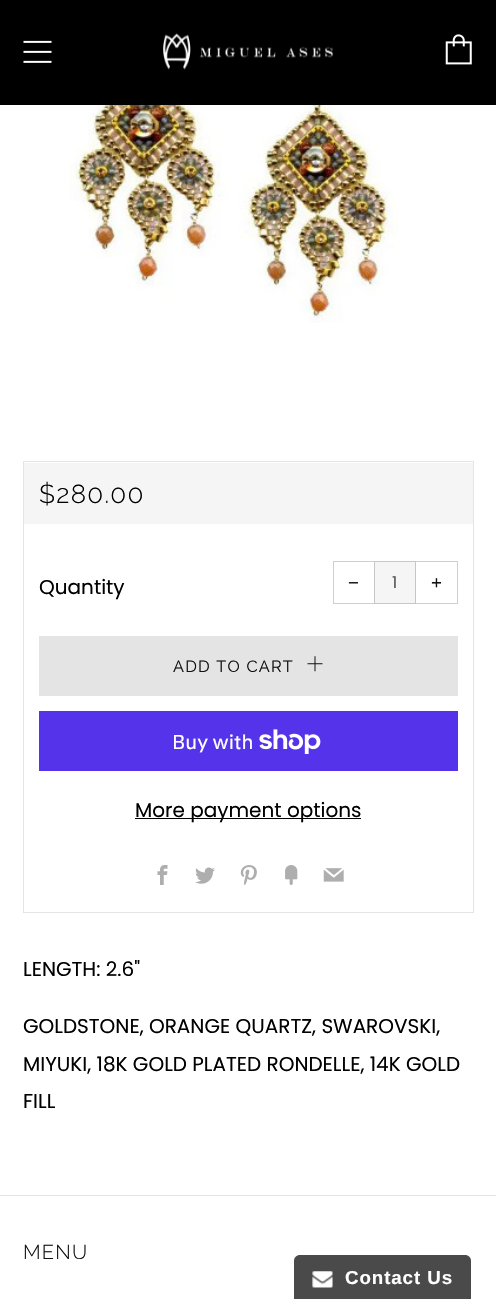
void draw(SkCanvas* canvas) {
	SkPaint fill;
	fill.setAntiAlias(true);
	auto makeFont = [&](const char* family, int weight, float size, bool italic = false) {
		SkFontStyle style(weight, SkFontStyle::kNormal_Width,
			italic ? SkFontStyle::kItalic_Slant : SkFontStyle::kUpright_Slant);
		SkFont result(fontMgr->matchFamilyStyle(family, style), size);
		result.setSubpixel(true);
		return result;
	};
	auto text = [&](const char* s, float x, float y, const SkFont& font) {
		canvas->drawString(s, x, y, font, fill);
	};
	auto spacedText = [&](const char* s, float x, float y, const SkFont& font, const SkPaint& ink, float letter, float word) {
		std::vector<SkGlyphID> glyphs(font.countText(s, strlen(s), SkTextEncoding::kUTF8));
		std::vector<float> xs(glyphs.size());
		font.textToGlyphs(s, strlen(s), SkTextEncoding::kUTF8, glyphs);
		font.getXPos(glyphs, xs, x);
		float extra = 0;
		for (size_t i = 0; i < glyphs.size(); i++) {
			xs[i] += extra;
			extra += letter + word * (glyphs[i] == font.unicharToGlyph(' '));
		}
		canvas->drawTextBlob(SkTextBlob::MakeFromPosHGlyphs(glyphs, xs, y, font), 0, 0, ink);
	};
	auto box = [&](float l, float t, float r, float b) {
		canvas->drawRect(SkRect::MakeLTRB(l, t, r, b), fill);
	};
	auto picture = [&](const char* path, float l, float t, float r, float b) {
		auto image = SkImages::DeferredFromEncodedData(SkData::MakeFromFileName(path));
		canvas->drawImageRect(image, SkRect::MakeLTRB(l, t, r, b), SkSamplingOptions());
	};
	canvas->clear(0xFFFFFFFF);
	fill.setColor(0xFF000000);
	box(0, 0, 496, 105);
	picture("image0.png", 23, 40, 52, 63);
	picture("image1.png", 163, 33, 334, 70);
	picture("image2.png", 445, 34, 472, 65);
	picture("image3.png", 69, 105, 399, 323);
	fill.setStyle(SkPaint::kStroke_Style);
	fill.setStrokeWidth(1);
	fill.setColor(0xFFE4E4E4);
	canvas->drawRect(SkRect::MakeLTRB(23.5f, 461.5f, 473.5f, 912.5f), fill);
	fill.setStyle(SkPaint::kFill_Style);
	fill.setColor(0xFFF5F5F5);
	box(24, 463, 473, 524);
	fill.setStyle(SkPaint::kStroke_Style);
	fill.setColor(0xFFCFCFCF);
	canvas->drawRect(SkRect::MakeLTRB(333.5f, 561.5f, 374.5f, 603.5f), fill);
	fill.setStyle(SkPaint::kFill_Style);
	fill.setColor(0xFFF5F5F5);
	canvas->drawRect(SkRect::MakeLTRB(374.5f, 561.5f, 415.5f, 603.5f), fill);
	fill.setStyle(SkPaint::kStroke_Style);
	fill.setColor(0xFFC7C7C7);
	canvas->drawRect(SkRect::MakeLTRB(374.5f, 561.5f, 415.5f, 603.5f), fill);
	fill.setStyle(SkPaint::kFill_Style);
	fill.setColor(0xCCFFFFFF);
	box(415, 561, 416, 604);
	fill.setStyle(SkPaint::kStroke_Style);
	fill.setColor(0x33111111);
	canvas->drawRect(SkRect::MakeLTRB(415.5f, 561.5f, 457.5f, 603.5f), fill);
	fill.setStyle(SkPaint::kFill_Style);
	fill.setColor(0xFFE4E4E4);
	box(39, 636, 458, 696);
	picture("image4.png", 307, 656, 323, 672);
	fill.setColor(0xFF5433EB);
	box(39, 711, 458, 771);
	picture("image5.png", 259, 729, 321, 754);
	fill.setColor(0xFF000000);
	box(135, 818, 361, 819);
	picture("image6.png", 157, 865, 168, 885);
	picture("image7.png", 195, 867, 215, 884);
	picture("image8.png", 240, 865, 257, 885);
	picture("image9.png", 285, 865, 298, 885);
	picture("image10.png", 323, 868, 344, 882);
	fill.setColor(0xFFE4E4E4);
	box(0, 1195, 496, 1196);
	fill.setColor(0xFF4A4A4A);
	canvas->drawPath(SkPathBuilder().moveTo(300, 1255).lineTo(465, 1255).cubicTo(468.5f, 1255, 471, 1257.5f, 471, 1261).lineTo(471, 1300).lineTo(294, 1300).lineTo(294, 1261).cubicTo(294, 1257.5f, 296.5f, 1255, 300, 1255).close().detach(), fill);
	picture("image11.png", 312, 1271, 333, 1288);
	auto font1 = makeFont("Raleway", 300, 26);
	fill.setColor(0xFF000000);
	spacedText("$280.00", 39, 503, font1, fill, 1.25f, 0);
	auto font2 = makeFont("Poppins", 400, 20);
	text("Quantity", 39, 594, font2);
	auto font3 = makeFont("Liberation Sans", 400, 18.75f);
	fill.setColor(0xFF111111);
	text("−", 348, 589, font3);
	auto font4 = makeFont("Poppins", 400, 16.25f);
	fill.setColor(0xFF555555);
	text("1", 392, 588, font4);
	fill.setColor(0xFF111111);
	text("+", 431, 589, font3);
	auto font5 = makeFont("Raleway", 400, 16.25f);
	spacedText("ADD TO CART", 173, 672, font5, fill, 1.25f, 0);
	auto font6 = makeFont("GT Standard", 400, 20);
	fill.setColor(0xFFFFFFFF);
	text("Buy with", 172, 749, font6);
	fill.setColor(0xFF000000);
	text("More payment options", 135, 817, font2);
	text("LENGTH: 2.6\"", 23, 976, font2);
	text("GOLDSTONE, ORANGE QUARTZ, SWAROVSKI,", 23, 1033, font2);
	text("MIYUKI, 18K GOLD PLATED RONDELLE, 14K GOLD", 23, 1071, font2);
	text("FILL", 23, 1108, font2);
	auto font7 = makeFont("Raleway", 300, 20);
	fill.setColor(0xFF111111);
	spacedText("MENU", 23, 1259, font7, fill, 1.25f, 0);
	auto font8 = makeFont("Liberation Sans", 700, 18.75f);
	fill.setColor(0xFFFFFFFF);
	spacedText("Contact Us", 345, 1284, font8, fill, 0.9f, 0);
}
